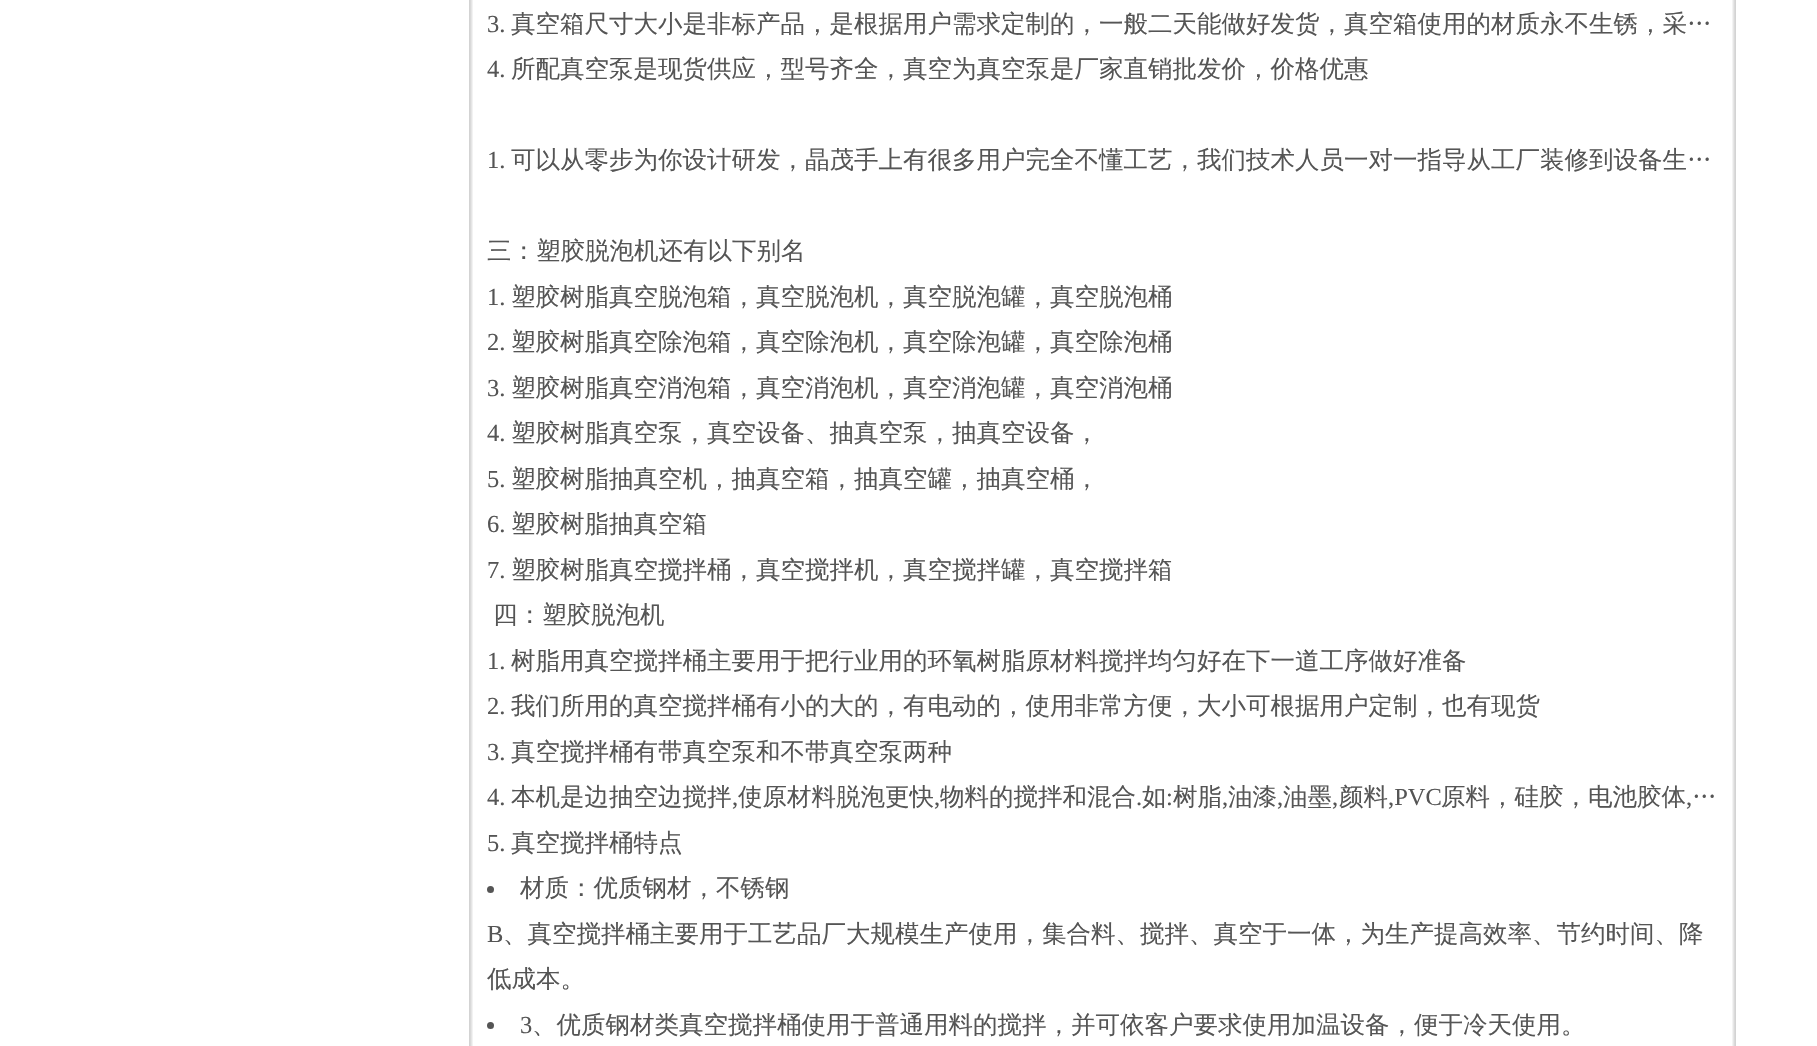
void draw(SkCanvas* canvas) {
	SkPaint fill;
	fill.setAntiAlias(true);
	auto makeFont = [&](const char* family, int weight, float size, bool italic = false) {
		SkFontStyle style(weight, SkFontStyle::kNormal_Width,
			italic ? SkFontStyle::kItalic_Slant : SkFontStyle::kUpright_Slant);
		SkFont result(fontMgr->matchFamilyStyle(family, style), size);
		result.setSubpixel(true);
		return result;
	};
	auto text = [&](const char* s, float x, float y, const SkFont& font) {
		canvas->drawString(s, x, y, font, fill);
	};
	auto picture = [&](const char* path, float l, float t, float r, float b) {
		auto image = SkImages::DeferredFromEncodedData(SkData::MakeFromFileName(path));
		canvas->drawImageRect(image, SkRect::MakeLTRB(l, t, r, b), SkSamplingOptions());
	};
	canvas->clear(0xFFFFFFFF);
	picture("image0.png", 469, 0, 1736, 1046);
	fill.setColor(0xFF555555);
	canvas->drawCircle(490.5f, 889.5f, 3.5f, fill);
	canvas->drawCircle(490.5f, 1025.5f, 3.5f, fill);
	auto font1 = makeFont("Liberation Serif", 400, 24.5f);
	text("3.", 487, 32, font1);
	auto font2 = makeFont("WenQuanYi Zen Hei", 500, 24.5f);
	text("真空箱尺寸大小是非标产品，是根据用户需求定制的，一般二天能做好发货，真空箱使用的材质永不生锈，采…", 511, 32, font2);
	text("4.", 487, 77, font1);
	text("所配真空泵是现货供应，型号齐全，真空为真空泵是厂家直销批发价，价格优惠", 511, 77, font2);
	text("1.", 487, 168, font1);
	text("可以从零步为你设计研发，晶茂手上有很多用户完全不懂工艺，我们技术人员一对一指导从工厂装修到设备生…", 511, 168, font2);
	text("三：塑胶脱泡机还有以下别名", 487, 259, font2);
	text("1.", 487, 305, font1);
	text("塑胶树脂真空脱泡箱，真空脱泡机，真空脱泡罐，真空脱泡桶", 511, 305, font2);
	text("2.", 487, 350, font1);
	text("塑胶树脂真空除泡箱，真空除泡机，真空除泡罐，真空除泡桶", 511, 350, font2);
	text("3.", 487, 396, font1);
	text("塑胶树脂真空消泡箱，真空消泡机，真空消泡罐，真空消泡桶", 511, 396, font2);
	text("4.", 487, 441, font1);
	text("塑胶树脂真空泵，真空设备、抽真空泵，抽真空设备，", 511, 441, font2);
	text("5.", 487, 487, font1);
	text("塑胶树脂抽真空机，抽真空箱，抽真空罐，抽真空桶，", 511, 487, font2);
	text("6.", 487, 532, font1);
	text("塑胶树脂抽真空箱", 511, 532, font2);
	text("7.", 487, 578, font1);
	text("塑胶树脂真空搅拌桶，真空搅拌机，真空搅拌罐，真空搅拌箱", 511, 578, font2);
	text("四：塑胶脱泡机", 493, 623, font2);
	text("1.", 487, 669, font1);
	text("树脂用真空搅拌桶主要用于把行业用的环氧树脂原材料搅拌均匀好在下一道工序做好准备", 511, 669, font2);
	text("2.", 487, 714, font1);
	text("我们所用的真空搅拌桶有小的大的，有电动的，使用非常方便，大小可根据用户定制，也有现货", 511, 714, font2);
	text("3.", 487, 760, font1);
	text("真空搅拌桶有带真空泵和不带真空泵两种", 511, 760, font2);
	text("4.", 487, 805, font1);
	text("本机是边抽空边搅拌", 511, 805, font2);
	text("使原材料脱泡更快", 738, 805, font2);
	text("物料的搅拌和混合", 940, 805, font2);
	text("如", 1142, 805, font2);
	text(":", 1166, 805, font1);
	text("树脂", 1173, 805, font2);
	text("油漆", 1228, 805, font2);
	text("油墨", 1283, 805, font2);
	text("颜料", 1339, 805, font2);
	text(",PVC", 1388, 805, font1);
	text("原料，硅胶，电池胶体", 1441, 805, font2);
	text("…", 1692, 805, font2);
	text(",", 732, 805, font1);
	text(",", 934, 805, font1);
	text(".", 1136, 805, font1);
	text(",", 1222, 805, font1);
	text(",", 1277, 805, font1);
	text(",", 1332, 805, font1);
	text(",", 1686, 805, font1);
	text("5.", 487, 851, font1);
	text("真空搅拌桶特点", 511, 851, font2);
	text("材质：优质钢材，不锈钢", 520, 896, font2);
	text("B", 487, 942, font1);
	text("、真空搅拌桶主要用于工艺品厂大规模生产使用，集合料、搅拌、真空于一体，为生产提高效率、节约时间、降", 503, 942, font2);
	text("低成本。", 487, 987, font2);
	text("3", 520, 1033, font1);
	text("、优质钢材类真空搅拌桶使用于普通用料的搅拌，并可依客户要求使用加温设备，便于冷天使用。", 532, 1033, font2);
}
